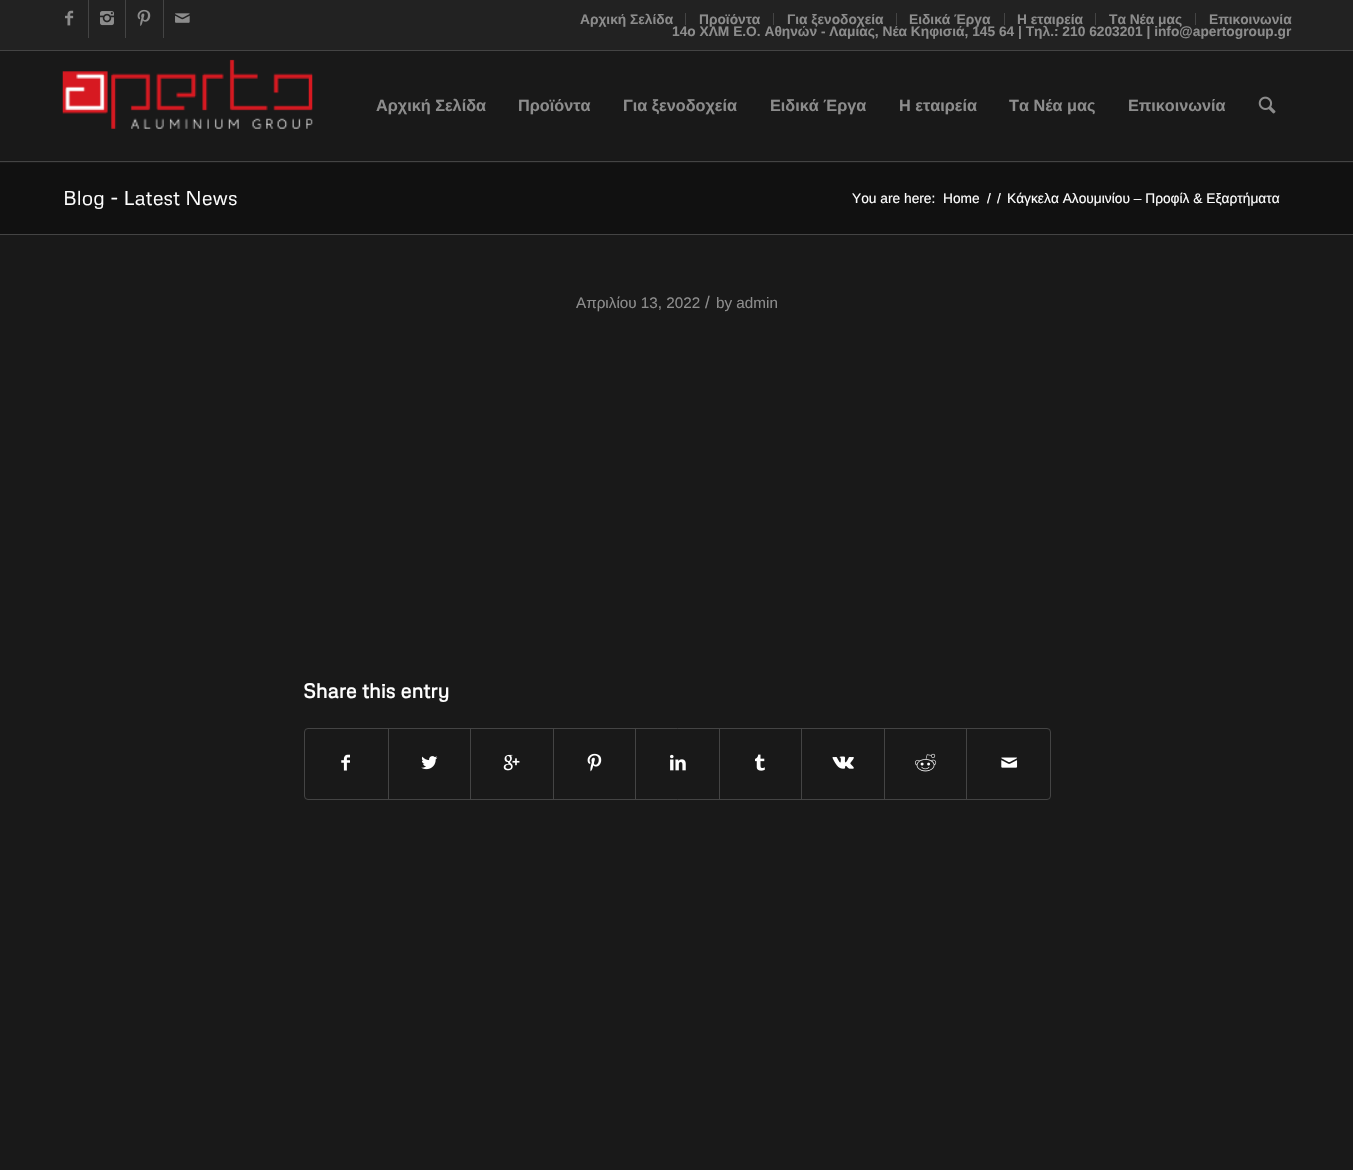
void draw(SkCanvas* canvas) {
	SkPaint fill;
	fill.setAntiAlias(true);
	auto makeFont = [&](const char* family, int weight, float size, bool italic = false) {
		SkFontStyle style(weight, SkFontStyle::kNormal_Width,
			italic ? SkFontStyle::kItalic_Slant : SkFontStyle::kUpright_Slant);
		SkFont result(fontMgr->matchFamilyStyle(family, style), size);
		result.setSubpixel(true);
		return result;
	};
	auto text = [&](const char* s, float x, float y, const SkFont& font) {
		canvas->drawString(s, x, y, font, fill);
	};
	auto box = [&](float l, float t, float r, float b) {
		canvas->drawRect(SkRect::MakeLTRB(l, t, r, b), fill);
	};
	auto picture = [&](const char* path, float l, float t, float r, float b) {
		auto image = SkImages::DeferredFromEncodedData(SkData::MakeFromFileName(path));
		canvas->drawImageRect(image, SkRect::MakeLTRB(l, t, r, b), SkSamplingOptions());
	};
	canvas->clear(0xFF191919);
	fill.setColor(0xFF222222);
	box(0, 0, 1353, 50);
	fill.setColor(0xFF444444);
	box(0, 50, 1353, 51);
	box(88, 0, 89, 38);
	picture("image0.png", 65, 10, 74, 26);
	box(125, 0, 126, 38);
	picture("image1.png", 100, 11, 114, 26);
	box(163, 0, 164, 38);
	picture("image2.png", 137, 9, 151, 26);
	picture("image3.png", 175, 13, 190, 23);
	box(685, 13, 686, 25);
	box(773, 13, 774, 25);
	box(896, 13, 897, 25);
	box(1004, 13, 1005, 25);
	box(1095, 13, 1096, 25);
	box(1195, 13, 1196, 25);
	box(0, 161, 1353, 162);
	picture("image4.png", 62, 59, 313, 129);
	picture("image5.png", 1258, 96, 1276, 114);
	fill.setColor(0xFF111111);
	box(0, 163, 1353, 234);
	fill.setColor(0xFF444444);
	box(0, 234, 1353, 235);
	fill.setStyle(SkPaint::kStroke_Style);
	fill.setStrokeWidth(1);
	canvas->drawRoundRect(SkRect::MakeLTRB(304.5f, 728.5f, 1050.5f, 799.5f), 3.5f, 3.5f, fill);
	picture("image6.png", 341, 754, 350, 771);
	fill.setStyle(SkPaint::kFill_Style);
	box(388, 729, 389, 799);
	picture("image7.png", 421, 756, 438, 770);
	box(470, 729, 471, 799);
	picture("image8.png", 503, 754, 520, 771);
	box(553, 729, 554, 799);
	picture("image9.png", 587, 753, 602, 772);
	box(635, 729, 636, 799);
	picture("image10.png", 670, 754, 686, 771);
	box(719, 729, 720, 799);
	picture("image11.png", 755, 754, 765, 771);
	box(801, 729, 802, 799);
	picture("image12.png", 832, 756, 854, 769);
	box(884, 729, 885, 799);
	picture("image13.png", 915, 753, 937, 772);
	box(966, 729, 967, 799);
	picture("image14.png", 1001, 757, 1018, 768);
	auto font1 = makeFont("Liberation Sans", 700, 13.75f);
	fill.setColor(0xFF8C8C8C);
	text("Αρχική Σελίδα", 580, 24, font1);
	text("Προϊόντα", 699, 24, font1);
	text("Για ξενοδοχεία", 787, 24, font1);
	text("Ειδικά Έργα", 909, 24, font1);
	text("Η εταιρεία", 1017, 24, font1);
	text("Τα Νέα μας", 1109, 24, font1);
	text("Επικοινωνία", 1209, 24, font1);
	text("14o ΧΛΜ Ε.Ο. Αθηνών - Λαμίας, Νέα Κηφισιά, 145 64 | Tηλ.: 210 6203201 | info@apertogroup.gr", 672, 36, font1);
	auto font2 = makeFont("Liberation Sans", 700, 16.25f);
	text("Αρχική Σελίδα", 376, 111, font2);
	text("Προϊόντα", 518, 111, font2);
	text("Για ξενοδοχεία", 623, 111, font2);
	text("Ειδικά Έργα", 770, 111, font2);
	text("Η εταιρεία", 899, 111, font2);
	text("Τα Νέα μας", 1009, 111, font2);
	text("Επικοινωνία", 1128, 111, font2);
	auto font3 = makeFont("Metrophobic", 400, 20);
	fill.setColor(0xFFFFFFFF);
	text("Blog - Latest News", 63, 205, font3);
	auto font4 = makeFont("Liberation Sans", 400, 13.75f);
	text("You are here:", 852, 203, font4);
	text("Home", 943, 203, font4);
	text("/", 987, 203, font4);
	text("/", 997, 203, font4);
	text("Κάγκελα Αλουμινίου – Προφίλ & Εξαρτήματα", 1007, 203, font4);
	auto font5 = makeFont("Liberation Sans", 400, 15.25f);
	fill.setColor(0xFF8C8C8C);
	text("Απριλίου 13, 2022", 576, 308, font5);
	auto font6 = makeFont("Liberation Sans", 400, 17);
	text("/", 705, 308, font6);
	text("by admin", 716, 308, font5);
	auto font7 = makeFont("Metrophobic", 700, 20);
	fill.setColor(0xFFFFFFFF);
	text("Share this entry", 303, 698, font7);
}
